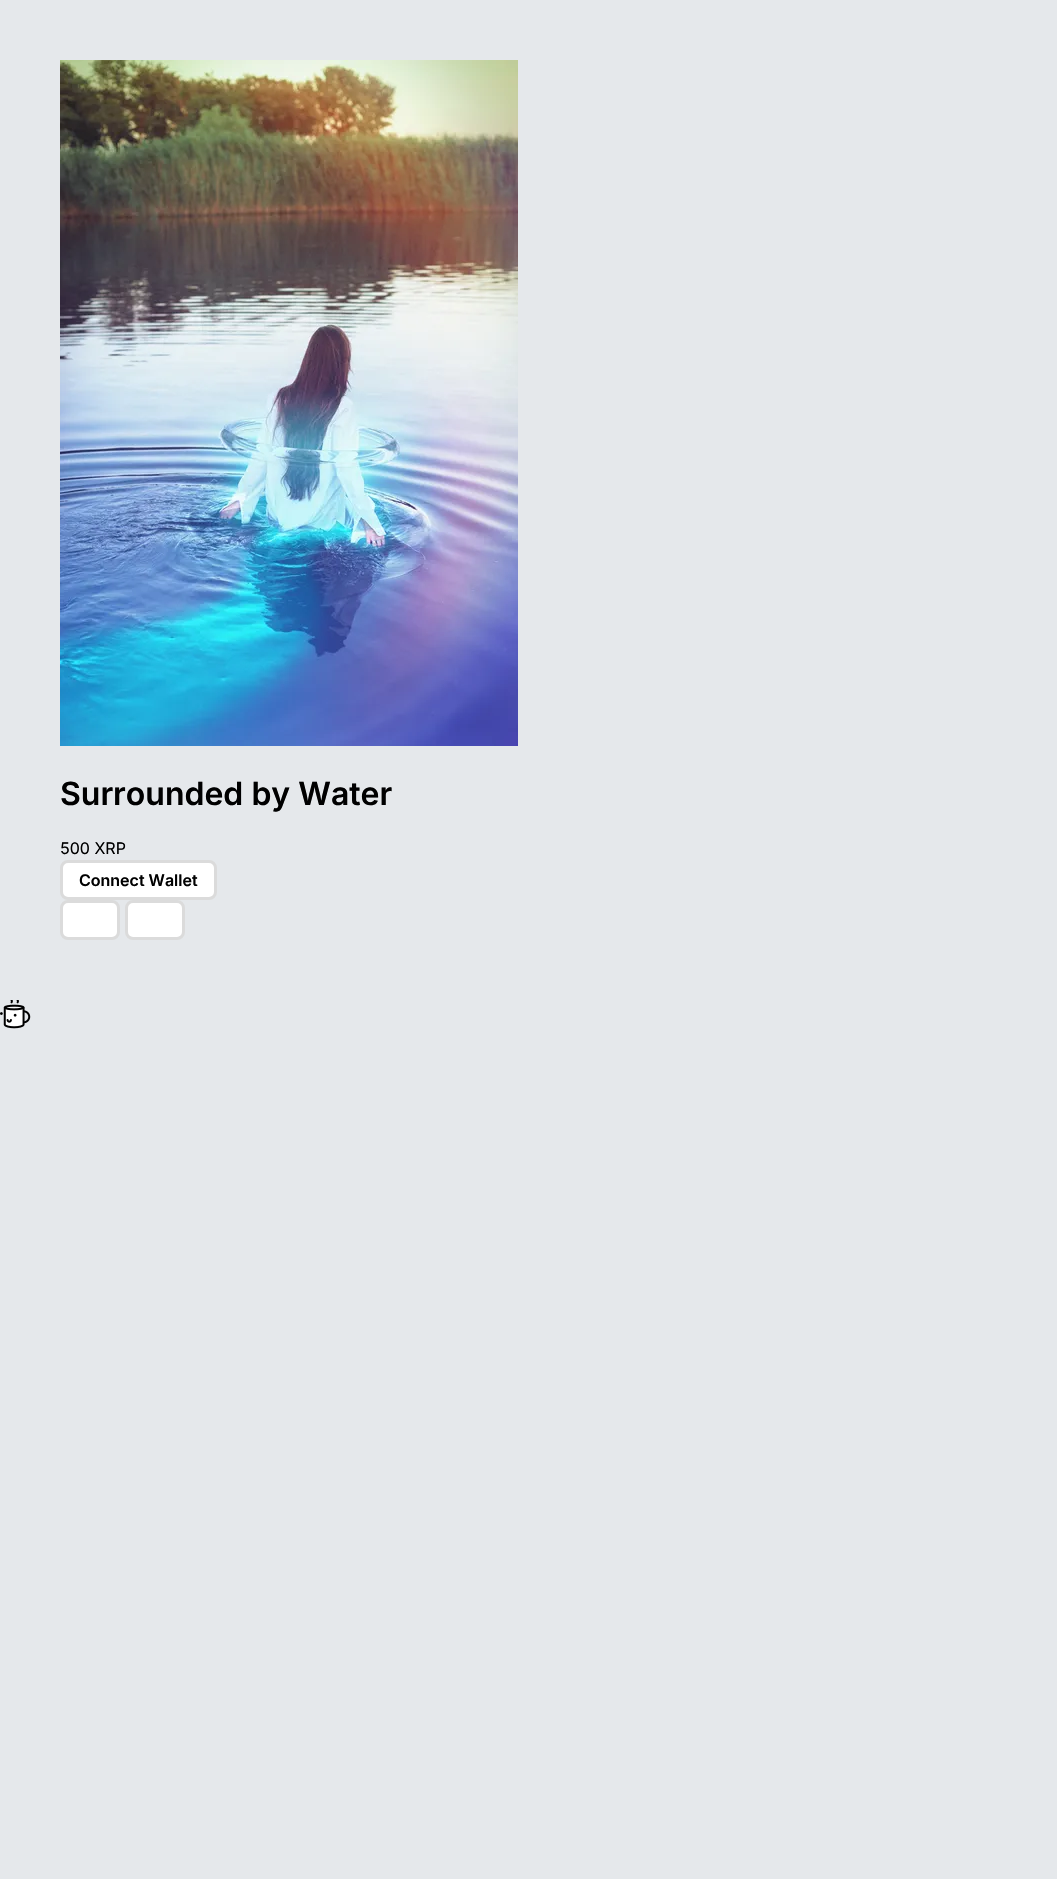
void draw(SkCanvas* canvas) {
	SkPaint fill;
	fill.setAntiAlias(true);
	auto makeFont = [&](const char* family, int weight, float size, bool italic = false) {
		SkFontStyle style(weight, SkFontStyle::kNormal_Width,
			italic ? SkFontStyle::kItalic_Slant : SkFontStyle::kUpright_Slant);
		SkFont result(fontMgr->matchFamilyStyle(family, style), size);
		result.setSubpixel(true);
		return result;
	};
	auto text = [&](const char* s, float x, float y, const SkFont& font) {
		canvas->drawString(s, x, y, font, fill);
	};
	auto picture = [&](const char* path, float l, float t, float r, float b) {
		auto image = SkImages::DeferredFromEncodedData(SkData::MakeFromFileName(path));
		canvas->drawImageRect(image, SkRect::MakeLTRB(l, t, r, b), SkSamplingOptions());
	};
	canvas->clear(0xFFE5E8EB);
	picture("image0.png", 60, 60, 518, 746);
	fill.setColor(0xFFFFFFFF);
	canvas->drawRoundRect(SkRect::MakeLTRB(61.5f, 861.5f, 215.5f, 898.5f), 6.5f, 6.5f, fill);
	fill.setStyle(SkPaint::kStroke_Style);
	fill.setStrokeWidth(3);
	fill.setColor(0xFFDBDBDB);
	canvas->drawRoundRect(SkRect::MakeLTRB(61.5f, 861.5f, 215.5f, 898.5f), 6.5f, 6.5f, fill);
	fill.setStyle(SkPaint::kFill_Style);
	fill.setColor(0xFFFFFFFF);
	canvas->drawRoundRect(SkRect::MakeLTRB(61.5f, 901.5f, 118.5f, 938.5f), 6.5f, 6.5f, fill);
	fill.setStyle(SkPaint::kStroke_Style);
	fill.setColor(0xFFDBDBDB);
	canvas->drawRoundRect(SkRect::MakeLTRB(61.5f, 901.5f, 118.5f, 938.5f), 6.5f, 6.5f, fill);
	fill.setStyle(SkPaint::kFill_Style);
	fill.setColor(0xFFFFFFFF);
	canvas->drawRoundRect(SkRect::MakeLTRB(126.5f, 901.5f, 183.5f, 938.5f), 6.5f, 6.5f, fill);
	fill.setStyle(SkPaint::kStroke_Style);
	fill.setColor(0xFFDBDBDB);
	canvas->drawRoundRect(SkRect::MakeLTRB(126.5f, 901.5f, 183.5f, 938.5f), 6.5f, 6.5f, fill);
	picture("image1.png", 0, 1000, 31, 1029);
	auto font1 = makeFont("Inter", 600, 32);
	fill.setStyle(SkPaint::kFill_Style);
	fill.setColor(0xFF000000);
	text("Surrounded by Water", 60, 805, font1);
	auto font2 = makeFont("Inter", 400, 16);
	text("500 XRP", 60, 854, font2);
	auto font3 = makeFont("Inter", 600, 16);
	text("Connect Wallet", 79, 886, font3);
}
